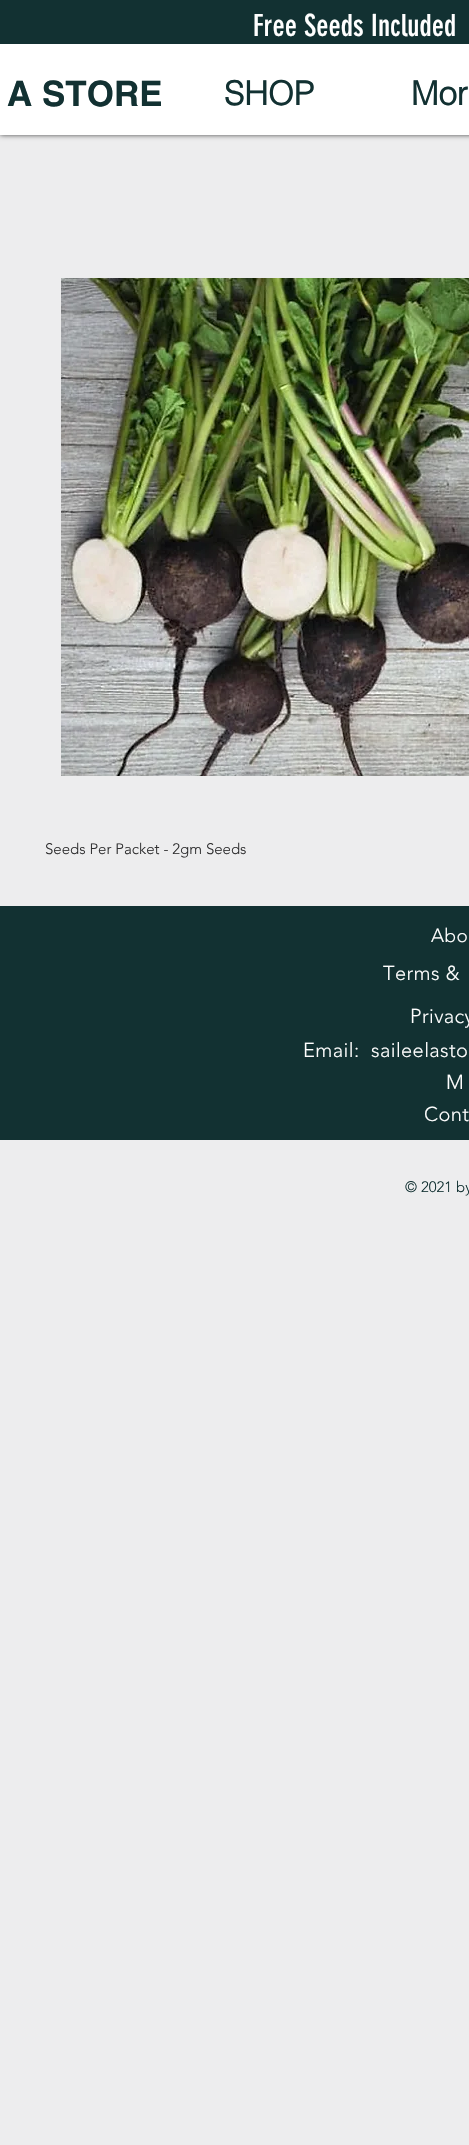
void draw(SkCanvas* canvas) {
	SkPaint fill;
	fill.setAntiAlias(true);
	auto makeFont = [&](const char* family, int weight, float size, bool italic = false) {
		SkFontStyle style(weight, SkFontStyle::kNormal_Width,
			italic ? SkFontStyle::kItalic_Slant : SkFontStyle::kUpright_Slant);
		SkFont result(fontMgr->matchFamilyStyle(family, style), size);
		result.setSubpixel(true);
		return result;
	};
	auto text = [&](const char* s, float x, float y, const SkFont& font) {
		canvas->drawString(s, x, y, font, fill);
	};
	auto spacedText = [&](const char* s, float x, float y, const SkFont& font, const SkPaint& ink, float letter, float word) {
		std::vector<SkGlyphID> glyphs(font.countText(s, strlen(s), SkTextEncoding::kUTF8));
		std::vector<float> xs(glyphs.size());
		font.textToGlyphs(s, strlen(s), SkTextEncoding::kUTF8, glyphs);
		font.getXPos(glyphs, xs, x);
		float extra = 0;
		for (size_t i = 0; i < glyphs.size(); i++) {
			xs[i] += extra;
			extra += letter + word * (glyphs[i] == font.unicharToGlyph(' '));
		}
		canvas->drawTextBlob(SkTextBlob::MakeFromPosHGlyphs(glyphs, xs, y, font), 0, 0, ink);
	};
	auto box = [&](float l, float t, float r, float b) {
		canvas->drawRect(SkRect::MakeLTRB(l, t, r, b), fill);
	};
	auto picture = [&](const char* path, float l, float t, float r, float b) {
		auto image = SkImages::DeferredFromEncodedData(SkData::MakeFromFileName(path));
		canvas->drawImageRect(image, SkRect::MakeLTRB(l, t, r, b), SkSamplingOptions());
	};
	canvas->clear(0xFFEDEDEE);
	fill.setColor(0xB3000000);
	fill.setMaskFilter(SkMaskFilter::MakeBlur(kNormal_SkBlurStyle, 2.5f));
	canvas->drawRect(SkRect::MakeLTRB(0, 0, 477, 135), fill);
	fill.setMaskFilter(nullptr);
	fill.setColor(0xFFFFFFFF);
	box(0, 44, 469, 135);
	fill.setColor(0xFF123132);
	box(0, 0, 469, 44);
	picture("image0.png", 61, 278, 469, 776);
	box(0, 906, 469, 1140);
	auto font1 = makeFont("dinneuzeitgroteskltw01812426", 400, 30);
	fill.setColor(0xFFFFFFFF);
	text("Free Seeds Included", 253, 36, font1);
	auto font2 = makeFont("helvetica", 700, 35);
	fill.setColor(0xFF123132);
	text("A STORE", 7, 106, font2);
	auto font3 = makeFont("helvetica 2", 700, 33);
	text("SHOP", 224, 105, font3);
	text("Mor", 411, 105, font3);
	auto font4 = makeFont("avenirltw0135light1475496", 300, 15);
	fill.setColor(0xFF2F2F30);
	text("Seeds Per Packet - 2gm Seeds", 45, 854, font4);
	auto font5 = makeFont("avenirltw0135light1475496", 300, 19);
	fill.setColor(0xFFFFFFFF);
	spacedText("Abo", 431, 942, font5, fill, 0.5f, 0);
	auto font6 = makeFont("avenirltw0135light1475496", 300, 20);
	spacedText("Terms &", 383, 980, font6, fill, 0.4f, 0);
	spacedText("Privacy", 410, 1023, font6, fill, 0.4f, 0);
	spacedText("Email:", 303, 1057, font6, fill, 0.4f, 0);
	spacedText("saileelasto", 371, 1057, font6, fill, 0.4f, 0);
	spacedText("M", 446, 1089, font6, fill, 0.4f, 0);
	spacedText("Cont", 424, 1121, font6, fill, 0.4f, 0);
	fill.setColor(0xFF123132);
	text("© 2021 by", 405, 1192, font4);
}
